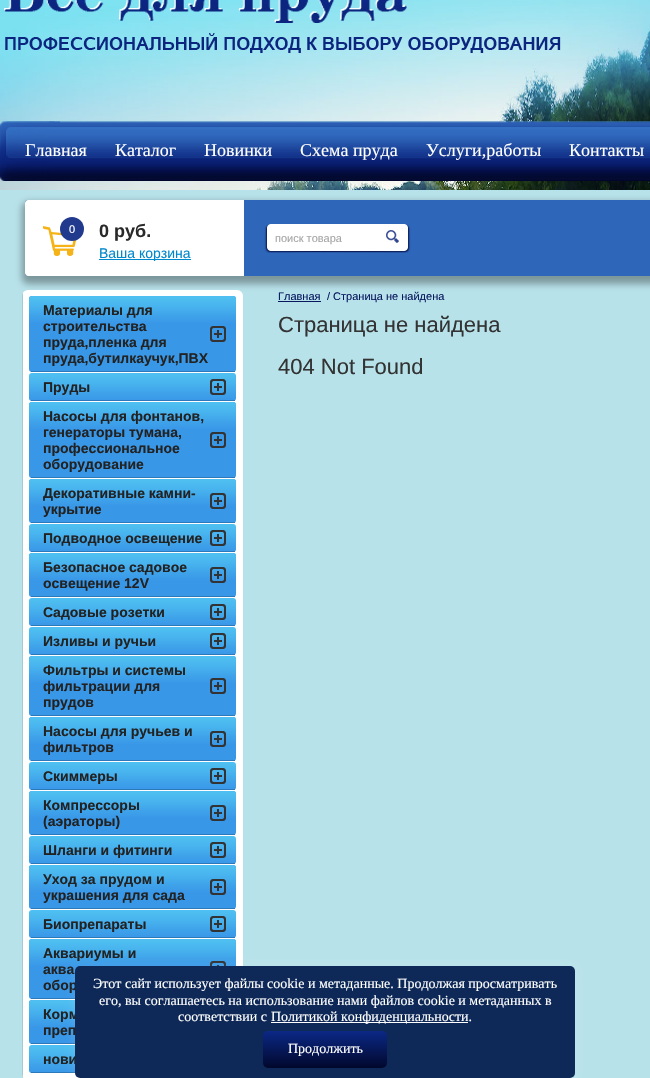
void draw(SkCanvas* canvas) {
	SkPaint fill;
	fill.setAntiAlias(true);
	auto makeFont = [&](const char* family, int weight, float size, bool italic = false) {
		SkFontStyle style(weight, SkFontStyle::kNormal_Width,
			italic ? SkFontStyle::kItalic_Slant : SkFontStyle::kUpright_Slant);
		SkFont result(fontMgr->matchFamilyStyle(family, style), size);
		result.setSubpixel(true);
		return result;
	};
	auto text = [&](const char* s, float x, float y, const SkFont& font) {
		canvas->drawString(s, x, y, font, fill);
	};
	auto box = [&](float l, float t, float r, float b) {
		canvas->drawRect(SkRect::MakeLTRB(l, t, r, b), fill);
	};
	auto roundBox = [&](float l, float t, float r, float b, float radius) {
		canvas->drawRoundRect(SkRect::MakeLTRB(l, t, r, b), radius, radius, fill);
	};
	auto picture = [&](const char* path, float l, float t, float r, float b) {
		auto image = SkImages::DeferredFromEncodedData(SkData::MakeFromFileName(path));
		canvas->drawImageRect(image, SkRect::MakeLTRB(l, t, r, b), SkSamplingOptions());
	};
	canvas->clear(0xFFFFFFFF);
	picture("image0.png", 0, 0, 650, 190);
	picture("image1.png", 0, 121, 60, 181);
	picture("image2.png", 49, 121, 650, 181);
	fill.setColor(0xFFB8E2EA);
	box(0, 190, 650, 1078);
	fill.setColor(0xFF7B979C);
	fill.setMaskFilter(SkMaskFilter::MakeBlur(kNormal_SkBlurStyle, 3.5f));
	canvas->drawRoundRect(SkRect::MakeLTRB(22, 202, 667, 284), 6, 6, fill);
	fill.setMaskFilter(nullptr);
	fill.setColor(0xFF2E66BA);
	roundBox(25, 200, 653, 276, 3);
	fill.setColor(0xFFFFFFFF);
	canvas->drawPath(SkPathBuilder().moveTo(28, 200).lineTo(244, 200).lineTo(244, 276).lineTo(28, 276).cubicTo(26.5f, 276, 25, 274.5f, 25, 273).lineTo(25, 203).cubicTo(25, 201.5f, 26.5f, 200, 28, 200).close().detach(), fill);
	picture("image3.png", 43, 226, 77, 256);
	fill.setColor(0xFF223A8D);
	canvas->drawCircle(72, 229, 12, fill);
	fill.setColor(0xFF0088CC);
	box(99, 259, 191, 260);
	picture("image4.png", 264, 224, 411, 253);
	picture("image5.png", 22, 290, 243, 1078);
	fill.setColor(0xFF3997E7);
	roundBox(29, 296, 236, 372, 3);
	picture("image6.png", 29, 296, 236, 342);
	fill.setColor(0xFF2D78B9);
	box(31, 371, 235, 372);
	picture("image7.png", 29, 373, 236, 401);
	box(31, 400, 235, 401);
	fill.setColor(0xFF3997E7);
	roundBox(29, 402, 236, 478, 3);
	picture("image6.png", 29, 402, 236, 448);
	fill.setColor(0xFF2D78B9);
	box(31, 477, 235, 478);
	fill.setColor(0xFF3997E7);
	roundBox(29, 479, 236, 523, 3);
	picture("image8.png", 29, 479, 236, 509);
	fill.setColor(0xFF2D78B9);
	box(31, 522, 235, 523);
	picture("image7.png", 29, 524, 236, 552);
	box(31, 551, 235, 552);
	fill.setColor(0xFF3997E7);
	roundBox(29, 553, 236, 597, 3);
	picture("image8.png", 29, 553, 236, 583);
	fill.setColor(0xFF2D78B9);
	box(31, 596, 235, 597);
	picture("image7.png", 29, 598, 236, 626);
	box(31, 625, 235, 626);
	picture("image7.png", 29, 627, 236, 655);
	box(31, 654, 235, 655);
	fill.setColor(0xFF3997E7);
	roundBox(29, 656, 236, 716, 3);
	picture("image9.png", 29, 656, 236, 694);
	fill.setColor(0xFF2D78B9);
	box(31, 715, 235, 716);
	fill.setColor(0xFF3997E7);
	roundBox(29, 717, 236, 761, 3);
	picture("image8.png", 29, 717, 236, 747);
	fill.setColor(0xFF2D78B9);
	box(31, 760, 235, 761);
	picture("image7.png", 29, 762, 236, 790);
	box(31, 789, 235, 790);
	fill.setColor(0xFF3997E7);
	roundBox(29, 791, 236, 835, 3);
	picture("image8.png", 29, 791, 236, 821);
	fill.setColor(0xFF2D78B9);
	box(31, 834, 235, 835);
	picture("image7.png", 29, 836, 236, 864);
	box(31, 863, 235, 864);
	fill.setColor(0xFF3997E7);
	roundBox(29, 865, 236, 909, 3);
	picture("image8.png", 29, 865, 236, 895);
	fill.setColor(0xFF2D78B9);
	box(31, 908, 235, 909);
	picture("image7.png", 29, 910, 236, 938);
	box(31, 937, 235, 938);
	fill.setColor(0xFF3997E7);
	roundBox(29, 939, 236, 999, 3);
	picture("image10.png", 29, 939, 236, 968);
	fill.setColor(0xFF2D78B9);
	box(31, 998, 75, 999);
	fill.setColor(0xFF3997E7);
	roundBox(29, 1000, 236, 1044, 3);
	picture("image11.png", 29, 1000, 75, 1029);
	fill.setColor(0xFF2D78B9);
	box(31, 1043, 75, 1044);
	picture("image12.png", 29, 1045, 75, 1073);
	box(31, 1072, 75, 1073);
	fill.setColor(0xFF08175E);
	box(278, 301, 321, 302);
	picture("image13.png", 4, 0, 407, 23);
	picture("image14.png", 5, 33, 561, 53);
	fill.setColor(0x1FFFFFFF);
	fill.setMaskFilter(SkMaskFilter::MakeBlur(kNormal_SkBlurStyle, 5));
	canvas->drawRoundRect(SkRect::MakeLTRB(75, 967, 575, 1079), 5, 5, fill);
	fill.setMaskFilter(nullptr);
	auto font1 = makeFont("Liberation Serif", 400, 18);
	fill.setColor(0xFFFFFFFF);
	text("Главная", 25, 156, font1);
	text("Каталог", 115, 156, font1);
	text("Новинки", 204, 156, font1);
	text("Схема пруда", 300, 156, font1);
	text("Услуги,работы", 426, 156, font1);
	text("Контакты", 569, 156, font1);
	auto font2 = makeFont("Liberation Sans", 400, 11);
	text("0", 69, 233, font2);
	auto font3 = makeFont("Liberation Sans", 700, 18);
	fill.setColor(0xFF2A2A2A);
	text("0 руб.", 99, 237, font3);
	auto font4 = makeFont("Liberation Sans", 400, 14);
	fill.setColor(0xFF0088CC);
	text("Ваша корзина", 99, 258, font4);
	fill.setColor(0xFFA5A5A5);
	text("поиск товара", 275, 242, font2);
	auto font5 = makeFont("Liberation Sans", 700, 14);
	fill.setColor(0xFF222222);
	text("Материалы для", 43, 315, font5);
	text("строительства", 43, 331, font5);
	text("пруда,пленка для", 43, 347, font5);
	text("пруда,бутилкаучук,ПВХ", 43, 363, font5);
	text("Пруды", 43, 392, font5);
	text("Насосы для фонтанов,", 43, 421, font5);
	text("генераторы тумана,", 43, 437, font5);
	text("профессиональное", 43, 453, font5);
	text("оборудование", 43, 469, font5);
	text("Декоративные камни-", 43, 498, font5);
	text("укрытие", 43, 514, font5);
	text("Подводное освещение", 43, 543, font5);
	text("Безопасное садовое", 43, 572, font5);
	text("освещение 12V", 43, 588, font5);
	text("Садовые розетки", 43, 617, font5);
	text("Изливы и ручьи", 43, 646, font5);
	text("Фильтры и системы", 43, 675, font5);
	text("фильтрации для", 43, 691, font5);
	text("прудов", 43, 707, font5);
	text("Насосы для ручьев и", 43, 736, font5);
	text("фильтров", 43, 752, font5);
	text("Скиммеры", 43, 781, font5);
	text("Компрессоры", 43, 810, font5);
	text("(аэраторы)", 43, 826, font5);
	text("Шланги и фитинги", 43, 855, font5);
	text("Уход за прудом и", 43, 884, font5);
	text("украшения для сада", 43, 900, font5);
	text("Биопрепараты", 43, 929, font5);
	text("Аквариумы и", 43, 958, font5);
	text("аква", 43, 974, font5);
	text("обор", 43, 990, font5);
	text("Корм", 43, 1019, font5);
	text("преп", 43, 1035, font5);
	text("нови", 43, 1064, font5);
	fill.setColor(0xFF08175E);
	text("Главная", 278, 300, font2);
	text("/ Страница не найдена", 327, 300, font2);
	auto font6 = makeFont("Liberation Sans", 400, 22);
	fill.setColor(0xFF333333);
	text("Страница не найдена", 278, 332, font6);
	text("404 Not Found", 278, 374, font6);
	fill.setColor(0xFF0E2958);
	roundBox(75, 966, 575, 1078, 5);
	auto font7 = makeFont("Liberation Serif", 400, 14);
	fill.setColor(0xFFFFFFFF);
	text("Этот сайт использует файлы cookie и метаданные. Продолжая просматривать", 93, 988, font7);
	text("его, вы соглашаетесь на использование нами файлов cookie и метаданных в", 99, 1005, font7);
	text("соответствии с", 178, 1021, font7);
	box(271, 1022, 468, 1023);
	text("Политикой конфиденциальности.", 271, 1021, font7);
	{
		const SkColor colors[] = {0xFF0B2886, 0xFF02082C};
		const float stops[] = {0, 1};
		const SkPoint ends[] = {{325, 1031}, {325, 1068}};
		fill.setShader(SkGradientShader::MakeLinear(ends, colors, stops, 2, SkTileMode::kClamp));
		fill.setAlpha(255);
	}
	roundBox(263, 1031, 387, 1068, 5);
	fill.setShader(nullptr);
	fill.setColor(0xFFFFFFFF);
	text("Продолжить", 288, 1053, font7);
}
